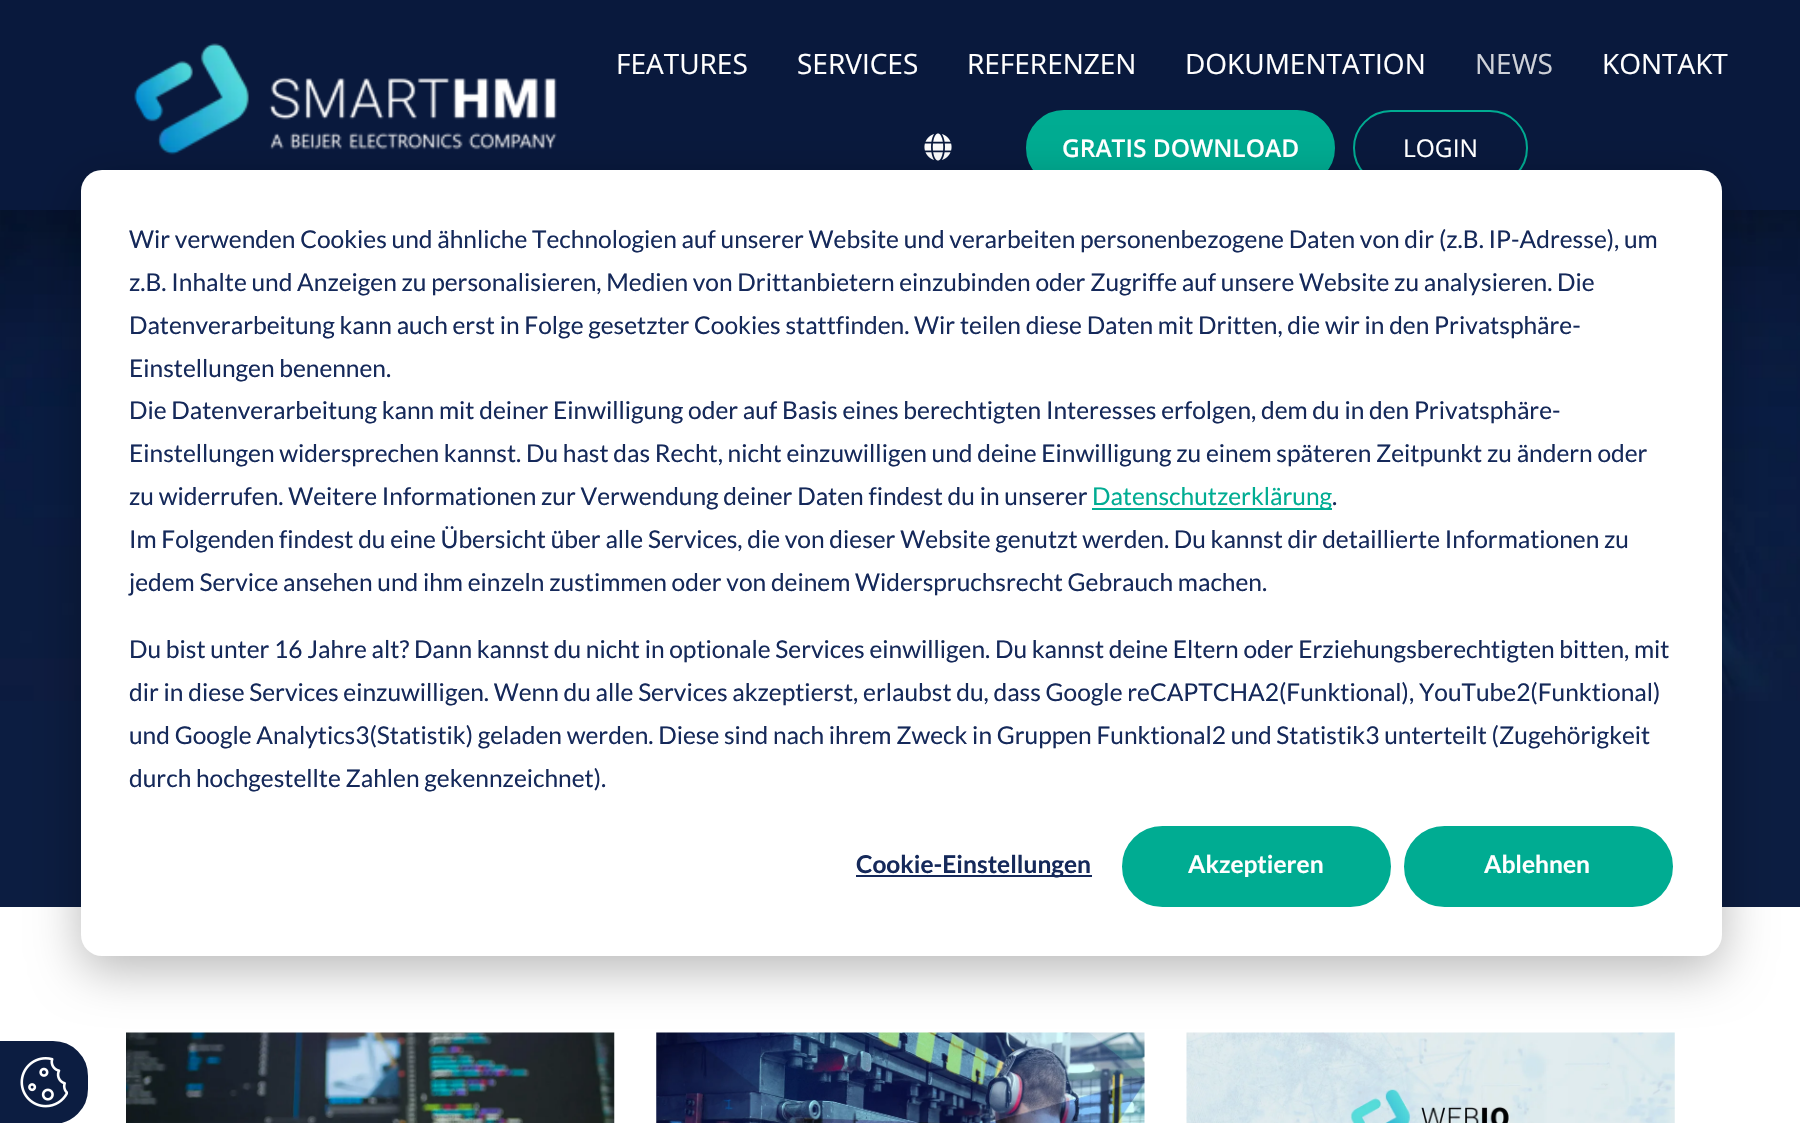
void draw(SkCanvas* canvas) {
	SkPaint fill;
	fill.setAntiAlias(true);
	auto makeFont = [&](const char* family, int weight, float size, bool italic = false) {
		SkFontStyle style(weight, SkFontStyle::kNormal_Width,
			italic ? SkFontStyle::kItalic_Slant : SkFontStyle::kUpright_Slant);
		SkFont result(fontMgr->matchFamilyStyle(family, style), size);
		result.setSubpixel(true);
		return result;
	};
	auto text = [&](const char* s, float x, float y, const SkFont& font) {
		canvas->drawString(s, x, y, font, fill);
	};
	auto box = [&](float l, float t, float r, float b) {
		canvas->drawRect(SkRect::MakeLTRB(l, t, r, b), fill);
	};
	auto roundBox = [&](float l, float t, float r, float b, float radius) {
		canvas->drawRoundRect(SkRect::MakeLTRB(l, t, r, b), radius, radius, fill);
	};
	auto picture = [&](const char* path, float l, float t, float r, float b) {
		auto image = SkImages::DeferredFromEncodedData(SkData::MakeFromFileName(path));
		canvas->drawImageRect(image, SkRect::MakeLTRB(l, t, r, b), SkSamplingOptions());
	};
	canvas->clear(0xFFFFFFFF);
	picture("image2.png", 0, 210, 1800, 701);
	fill.setColor(0x0D000000);
	fill.setMaskFilter(SkMaskFilter::MakeBlur(kNormal_SkBlurStyle, 17.5f));
	canvas->drawRect(SkRect::MakeLTRB(0, 5, 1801, 215), fill);
	fill.setMaskFilter(nullptr);
	fill.setColor(0xFF09193D);
	box(0, 0, 1800, 210);
	picture("image0.png", 134, 43, 557, 155);
	picture("image1.png", 924, 133, 952, 161);
	fill.setColor(0xFF00AC92);
	canvas->drawRoundRect(SkRect::MakeLTRB(1027, 111, 1334, 185), 37, 37, fill);
	fill.setStyle(SkPaint::kStroke_Style);
	fill.setStrokeWidth(2);
	canvas->drawRoundRect(SkRect::MakeLTRB(1027, 111, 1334, 185), 37, 37, fill);
	canvas->drawRoundRect(SkRect::MakeLTRB(1354, 111, 1527, 185), 37, 37, fill);
	fill.setStyle(SkPaint::kFill_Style);
	fill.setColor(0xFF0C1D41);
	box(0, 701, 1800, 907);
	picture("image3.png", 126, 1032, 615, 1123);
	picture("image4.png", 656, 1032, 1145, 1123);
	picture("image5.png", 1186, 1032, 1675, 1123);
	canvas->drawPath(SkPathBuilder().moveTo(1, 1042).lineTo(53, 1042).cubicTo(72, 1042, 87, 1057, 87, 1076).lineTo(87, 1089).cubicTo(87, 1108, 72, 1123, 53, 1123).lineTo(1, 1123).close().detach(), fill);
	fill.setStyle(SkPaint::kStroke_Style);
	canvas->drawPath(SkPathBuilder().moveTo(1, 1042).lineTo(53, 1042).cubicTo(72, 1042, 87, 1057, 87, 1076).lineTo(87, 1089).cubicTo(87, 1108, 72, 1123, 53, 1123).lineTo(1, 1123).close().detach(), fill);
	fill.setStyle(SkPaint::kFill_Style);
	fill.setColor(0x47000000);
	fill.setMaskFilter(SkMaskFilter::MakeBlur(kNormal_SkBlurStyle, 24.5f));
	canvas->drawRoundRect(SkRect::MakeLTRB(81, 184, 1722, 970), 21, 21, fill);
	fill.setMaskFilter(nullptr);
	fill.setColor(0xFFFFFFFF);
	roundBox(81, 170, 1722, 956, 21);
	fill.setColor(0xFF00AC92);
	box(1092, 508, 1332, 510);
	fill.setColor(0xFF15295A);
	box(856, 875, 1092, 877);
	fill.setColor(0xFF00AC92);
	canvas->drawRoundRect(SkRect::MakeLTRB(1123, 827, 1390, 906), 39.5f, 39.5f, fill);
	fill.setStyle(SkPaint::kStroke_Style);
	canvas->drawRoundRect(SkRect::MakeLTRB(1123, 827, 1390, 906), 39.5f, 39.5f, fill);
	fill.setStyle(SkPaint::kFill_Style);
	canvas->drawRoundRect(SkRect::MakeLTRB(1405, 827, 1672, 906), 39.5f, 39.5f, fill);
	fill.setStyle(SkPaint::kStroke_Style);
	canvas->drawRoundRect(SkRect::MakeLTRB(1405, 827, 1672, 906), 39.5f, 39.5f, fill);
	picture("image6.png", 20, 1057, 68, 1108);
	auto font1 = makeFont("Open Sans", 400, 28);
	fill.setStyle(SkPaint::kFill_Style);
	fill.setColor(0xFFFFFFFF);
	text("FEATURES", 616, 74, font1);
	text("SERVICES", 797, 74, font1);
	text("REFERENZEN", 967, 74, font1);
	text("DOKUMENTATION", 1185, 74, font1);
	fill.setColor(0xFFCED1D8);
	text("NEWS", 1475, 74, font1);
	fill.setColor(0xFFFFFFFF);
	text("KONTAKT", 1602, 74, font1);
	auto font2 = makeFont("Open Sans", 600, 24.5f);
	text("GRATIS DOWNLOAD", 1062, 157, font2);
	auto font3 = makeFont("Open Sans", 400, 24.5f);
	text("LOGIN", 1403, 157, font3);
	auto font4 = makeFont("Lato", 400, 24.5f);
	fill.setColor(0xFF15295A);
	text("Wir verwenden Cookies und ähnliche Technologien auf unserer Website und verarbeiten personenbezogene Daten von dir (z.B. IP-Adresse), um", 129, 248, font4);
	text("z.B. Inhalte und Anzeigen zu personalisieren, Medien von Drittanbietern einzubinden oder Zugriffe auf unsere Website zu analysieren. Die", 129, 291, font4);
	text("Datenverarbeitung kann auch erst in Folge gesetzter Cookies stattfinden. Wir teilen diese Daten mit Dritten, die wir in den Privatsphäre-", 129, 334, font4);
	text("Einstellungen benennen.", 129, 377, font4);
	text("Die Datenverarbeitung kann mit deiner Einwilligung oder auf Basis eines berechtigten Interesses erfolgen, dem du in den Privatsphäre-", 129, 419, font4);
	text("Einstellungen widersprechen kannst. Du hast das Recht, nicht einzuwilligen und deine Einwilligung zu einem späteren Zeitpunkt zu ändern oder", 129, 462, font4);
	text("zu widerrufen. Weitere Informationen zur Verwendung deiner Daten findest du in unserer", 129, 505, font4);
	fill.setColor(0xFF00AC92);
	text("Datenschutzerklärung", 1092, 505, font4);
	fill.setColor(0xFF15295A);
	text(".", 1332, 505, font4);
	text("Im Folgenden findest du eine Übersicht über alle Services, die von dieser Website genutzt werden. Du kannst dir detaillierte Informationen zu", 129, 548, font4);
	text("jedem Service ansehen und ihm einzeln zustimmen oder von deinem Widerspruchsrecht Gebrauch machen.", 129, 591, font4);
	text("Du bist unter 16 Jahre alt? Dann kannst du nicht in optionale Services einwilligen. Du kannst deine Eltern oder Erziehungsberechtigten bitten, mit", 129, 658, font4);
	text("dir in diese Services einzuwilligen. Wenn du alle Services akzeptierst, erlaubst du, dass Google reCAPTCHA2(Funktional), YouTube2(Funktional)", 129, 701, font4);
	text("und Google Analytics3(Statistik) geladen werden. Diese sind nach ihrem Zweck in Gruppen Funktional2 und Statistik3 unterteilt (Zugehörigkeit", 129, 744, font4);
	text("durch hochgestellte Zahlen gekennzeichnet).", 129, 787, font4);
	auto font5 = makeFont("Lato", 700, 24.5f);
	text("Cookie-Einstellungen", 856, 873, font5);
	fill.setColor(0xFFFFFFFF);
	text("Akzeptieren", 1188, 873, font5);
	text("Ablehnen", 1484, 873, font5);
}
